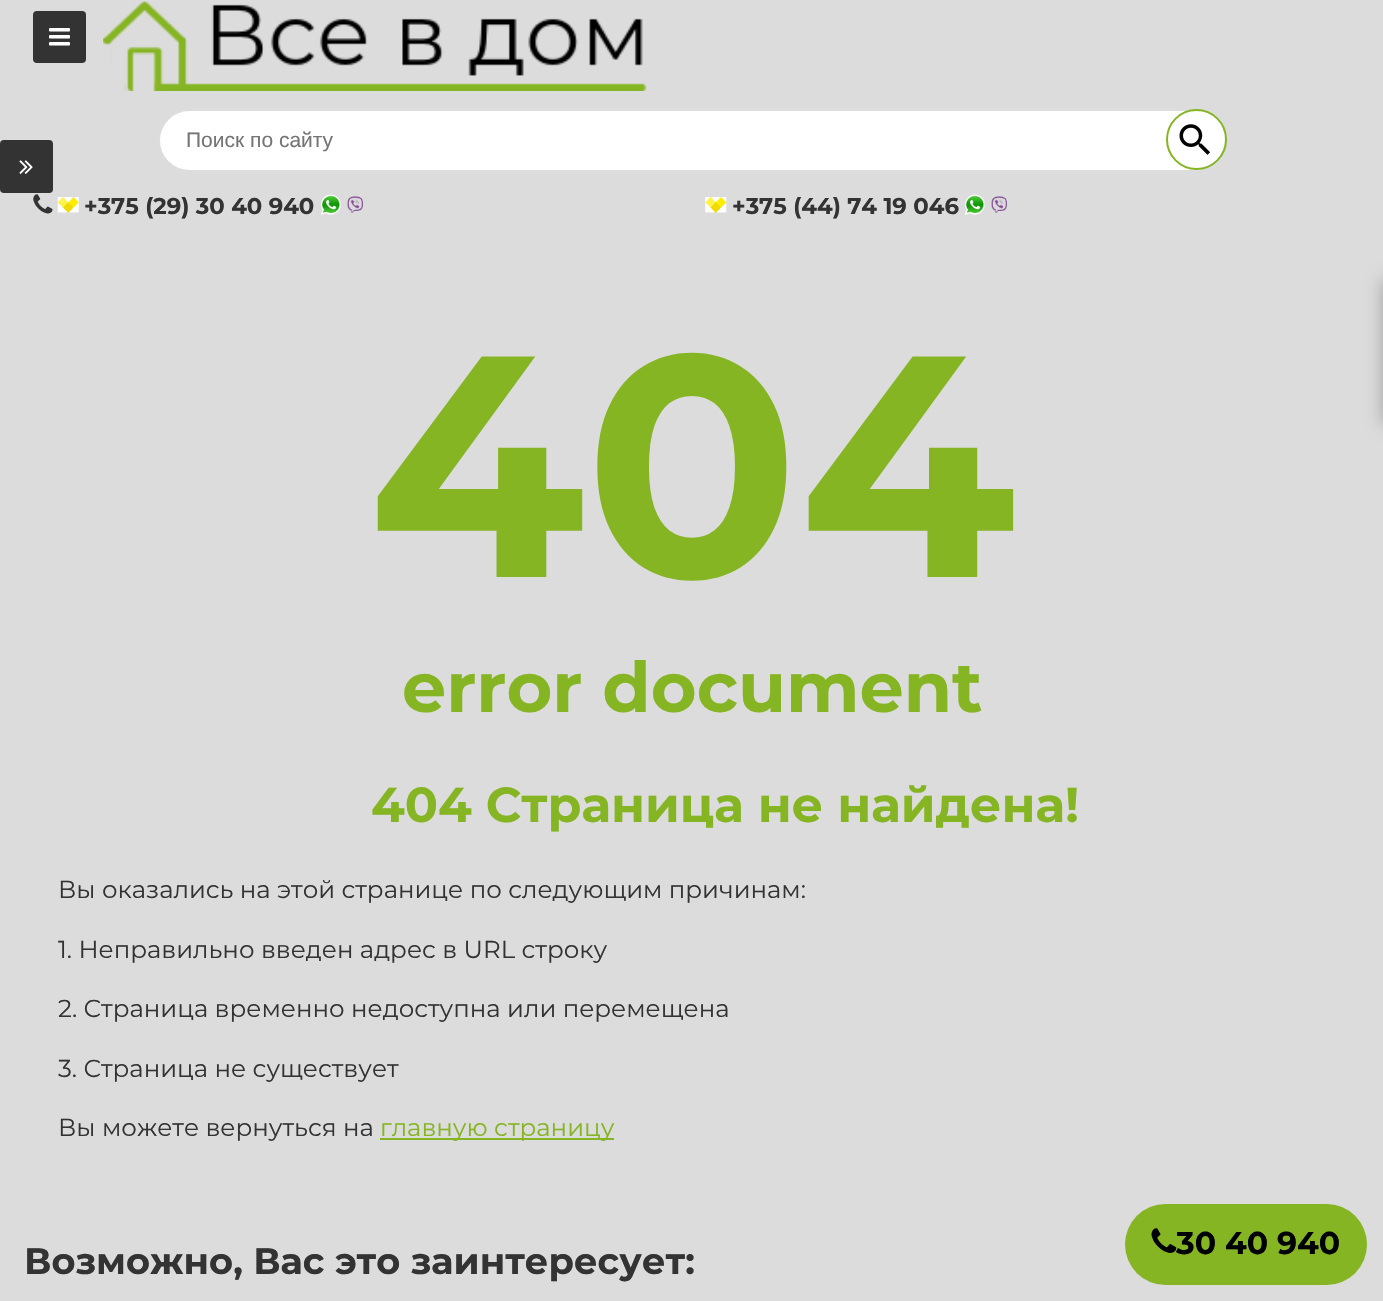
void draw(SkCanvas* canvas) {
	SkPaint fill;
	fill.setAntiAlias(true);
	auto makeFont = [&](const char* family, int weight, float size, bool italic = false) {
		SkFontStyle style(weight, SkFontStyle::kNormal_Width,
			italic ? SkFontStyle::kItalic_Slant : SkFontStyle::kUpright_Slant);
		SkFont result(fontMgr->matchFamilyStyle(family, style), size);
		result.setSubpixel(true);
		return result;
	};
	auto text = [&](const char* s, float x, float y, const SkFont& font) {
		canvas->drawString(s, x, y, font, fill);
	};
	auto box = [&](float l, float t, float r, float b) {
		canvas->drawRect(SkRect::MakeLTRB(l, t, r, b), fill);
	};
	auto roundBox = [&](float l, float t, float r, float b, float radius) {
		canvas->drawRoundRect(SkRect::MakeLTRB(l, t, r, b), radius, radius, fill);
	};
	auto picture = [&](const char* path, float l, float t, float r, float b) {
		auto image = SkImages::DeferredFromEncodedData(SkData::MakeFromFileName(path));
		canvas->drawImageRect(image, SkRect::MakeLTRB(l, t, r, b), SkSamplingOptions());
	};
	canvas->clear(0xFFDCDCDC);
	fill.setColor(0xFF333333);
	roundBox(33, 11, 86, 63, 4);
	picture("image0.png", 49, 28, 70, 46);
	picture("image1.png", 103, 1, 647, 91);
	fill.setColor(0xFFFFFFFF);
	canvas->drawRoundRect(SkRect::MakeLTRB(159, 110, 1226, 171), 30.5f, 30.5f, fill);
	fill.setStyle(SkPaint::kStroke_Style);
	fill.setStrokeWidth(2);
	fill.setColor(0xFFDDDDDD);
	canvas->drawRoundRect(SkRect::MakeLTRB(159, 110, 1226, 171), 30.5f, 30.5f, fill);
	fill.setStyle(SkPaint::kFill_Style);
	fill.setColor(0xFFFFFFFF);
	canvas->drawCircle(1196.5f, 139.5f, 29.5f, fill);
	fill.setStyle(SkPaint::kStroke_Style);
	fill.setColor(0xFF85B523);
	canvas->drawCircle(1196.5f, 139.5f, 29.5f, fill);
	picture("image2.png", 1179, 124, 1210, 155);
	picture("image3.png", 33, 194, 53, 214);
	picture("image4.png", 57, 197, 79, 213);
	picture("image5.png", 320, 194, 341, 215);
	picture("image6.png", 347, 196, 363, 213);
	picture("image7.png", 705, 197, 727, 213);
	picture("image5.png", 964, 194, 985, 215);
	picture("image8.png", 991, 196, 1007, 213);
	fill.setStyle(SkPaint::kFill_Style);
	fill.setColor(0xFF333333);
	roundBox(0, 140, 53, 193, 4);
	picture("image9.png", 19, 160, 33, 174);
	fill.setColor(0xFF85B523);
	box(380, 1138, 614, 1140);
	roundBox(1125, 1204, 1367, 1285, 40.5f);
	picture("image10.png", 1151, 1228, 1177, 1253);
	fill.setColor(0x4D000000);
	fill.setMaskFilter(SkMaskFilter::MakeBlur(kNormal_SkBlurStyle, 9));
	canvas->drawRect(SkRect::MakeLTRB(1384, 280, 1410, 424), fill);
	fill.setMaskFilter(nullptr);
	auto font1 = makeFont("Liberation Sans", 400, 21);
	fill.setColor(0xFF757575);
	text("Поиск по сайту", 186, 147, font1);
	auto font2 = makeFont("Montserrat", 700, 22.75f);
	fill.setColor(0xFF333333);
	text("+375 (29) 30 40 940", 84, 214, font2);
	text("+375 (44) 74 19 046", 732, 214, font2);
	auto font3 = makeFont("Montserrat", 700, 315);
	fill.setColor(0xFF85B523);
	text("404", 368, 577, font3);
	auto font4 = makeFont("Montserrat", 700, 70);
	text("error document", 402, 712, font4);
	auto font5 = makeFont("Montserrat", 700, 49);
	text("404 Страница не найдена!", 371, 822, font5);
	auto font6 = makeFont("Montserrat", 400, 24.5f);
	fill.setColor(0xFF333333);
	text("Вы оказались на этой странице по следующим причинам:", 58, 898, font6);
	text("1. Неправильно введен адрес в URL строку", 58, 958, font6);
	text("2. Страница временно недоступна или перемещена", 58, 1017, font6);
	text("3. Страница не существует", 58, 1077, font6);
	text("Вы можете вернуться на", 58, 1136, font6);
	fill.setColor(0xFF85B523);
	text("главную страницу", 380, 1136, font6);
	auto font7 = makeFont("Montserrat", 700, 36.75f);
	fill.setColor(0xFF333333);
	text("Возможно, Вас это заинтересует:", 24, 1274, font7);
	auto font8 = makeFont("Montserrat", 700, 31.5f);
	fill.setColor(0xFF000000);
	text("30 40 940", 1176, 1254, font8);
}
